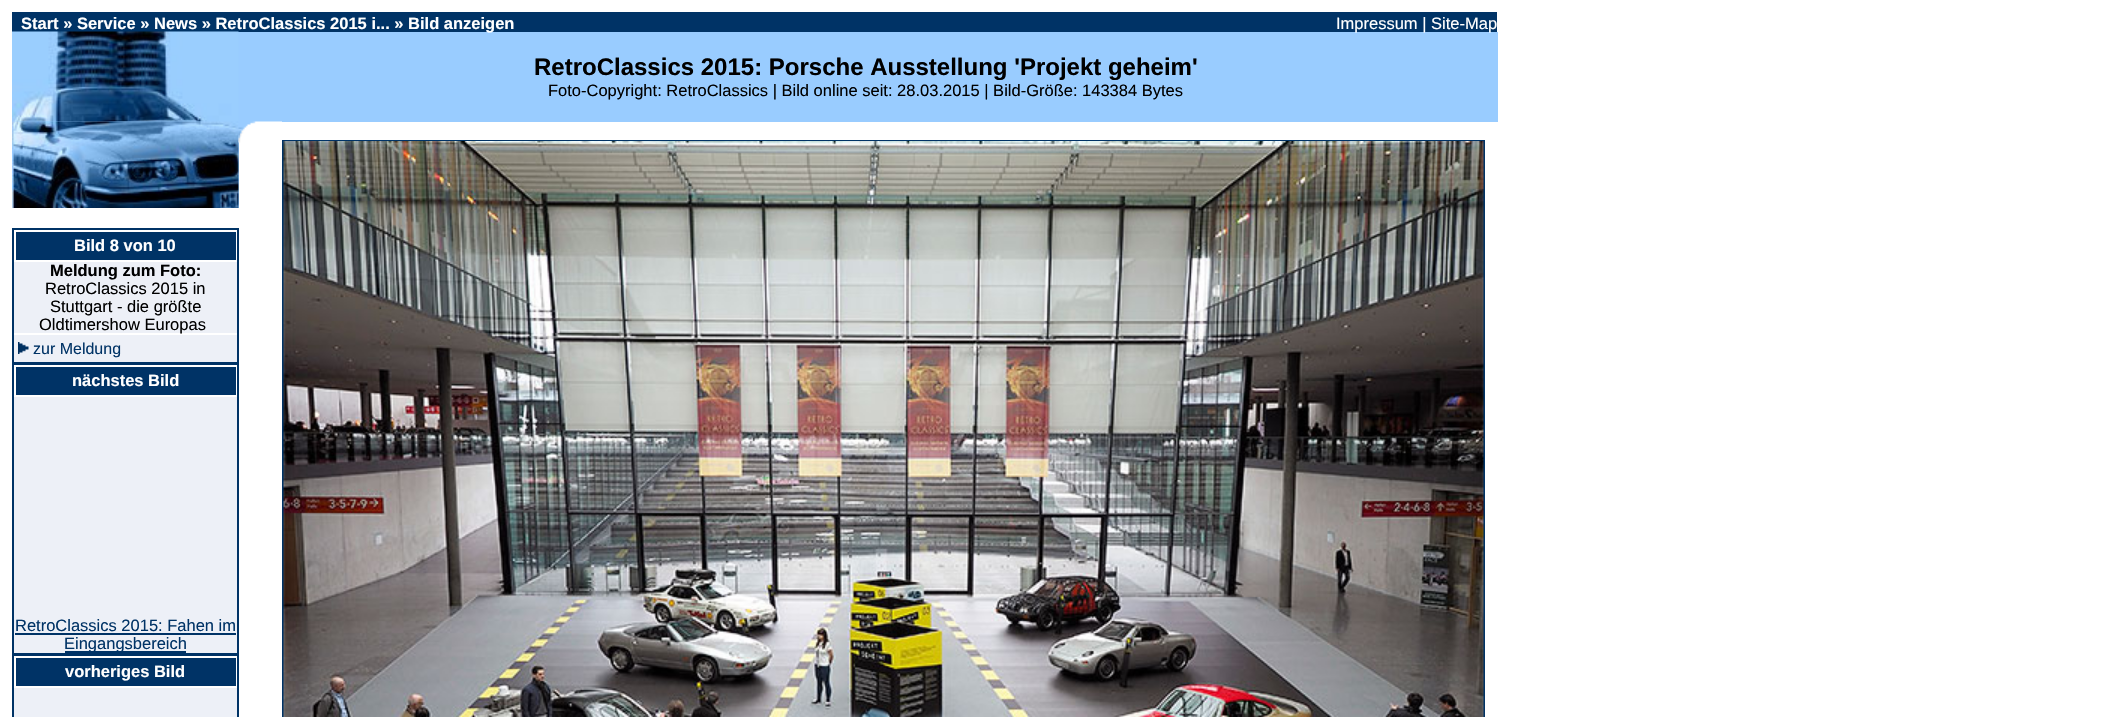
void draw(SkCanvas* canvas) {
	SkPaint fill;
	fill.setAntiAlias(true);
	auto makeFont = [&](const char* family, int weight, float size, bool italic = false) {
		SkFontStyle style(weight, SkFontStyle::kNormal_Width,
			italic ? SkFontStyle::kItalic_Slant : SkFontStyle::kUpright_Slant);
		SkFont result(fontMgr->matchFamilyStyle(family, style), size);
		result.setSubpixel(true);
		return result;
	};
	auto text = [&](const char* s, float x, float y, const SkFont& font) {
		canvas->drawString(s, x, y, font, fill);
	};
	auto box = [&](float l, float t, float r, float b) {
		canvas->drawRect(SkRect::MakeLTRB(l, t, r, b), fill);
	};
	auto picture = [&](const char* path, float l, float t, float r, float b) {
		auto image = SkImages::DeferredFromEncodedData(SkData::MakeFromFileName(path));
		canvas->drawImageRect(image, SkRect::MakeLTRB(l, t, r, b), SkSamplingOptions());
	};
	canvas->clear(0xFFFFFFFF);
	fill.setColor(0xFF99CCFF);
	box(12, 32, 1498, 122);
	fill.setColor(0xFF003366);
	box(12, 12, 1497, 32);
	fill.setColor(0xFF99CCFF);
	box(238, 122, 239, 208);
	fill.setColor(0xFF003366);
	box(12, 228, 239, 230);
	box(237, 228, 239, 363);
	box(12, 362, 239, 365);
	box(12, 228, 14, 363);
	fill.setColor(0xFFEDF0F7);
	box(14, 262, 237, 362);
	fill.setColor(0xFF003366);
	box(16, 232, 236, 260);
	fill.setColor(0xFFFFFFFF);
	box(14, 333, 237, 335);
	picture("image3.png", 18, 342, 29, 354);
	fill.setColor(0xFF003366);
	box(237, 363, 239, 654);
	box(12, 653, 239, 656);
	box(12, 363, 14, 717);
	fill.setColor(0xFFEDF0F7);
	box(14, 397, 237, 653);
	fill.setColor(0xFF003366);
	box(16, 367, 236, 395);
	box(15, 633, 236, 635);
	box(65, 651, 186, 653);
	box(237, 654, 239, 717);
	fill.setColor(0xFFEDF0F7);
	box(14, 688, 237, 717);
	fill.setColor(0xFF003366);
	box(16, 658, 236, 686);
	fill.setStyle(SkPaint::kStroke_Style);
	fill.setStrokeWidth(2);
	canvas->drawRect(SkRect::MakeLTRB(283, 141, 1484, 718), fill);
	picture("image4.png", 283, 141, 1484, 717);
	auto font1 = makeFont("Liberation Sans", 700, 16.5f);
	fill.setStyle(SkPaint::kFill_Style);
	fill.setColor(0xFFFFFFFF);
	text("Start » Service » News » RetroClassics 2015 i... » Bild anzeigen", 21, 29, font1);
	auto font2 = makeFont("Liberation Sans", 400, 16.5f);
	text("Impressum | Site-Map", 1336, 29, font2);
	picture("image0.png", 12, 31, 239, 122);
	auto font3 = makeFont("Liberation Sans", 700, 24);
	fill.setColor(0xFF000000);
	text("RetroClassics 2015: Porsche Ausstellung 'Projekt geheim'", 534, 75, font3);
	text("Foto-Copyright: RetroClassics | Bild online seit: 28.03.2015 | Bild-Größe: 143384 Bytes", 548, 96, font2);
	picture("image2.png", 12, 121, 239, 208);
	picture("image1.png", 238, 121, 282, 143);
	fill.setColor(0xFFFFFFFF);
	text("Bild 8 von 10", 74, 251, font1);
	fill.setColor(0xFF000000);
	text("Meldung zum Foto:", 50, 276, font1);
	text("RetroClassics 2015 in", 45, 294, font2);
	text("Stuttgart - die größte", 50, 312, font2);
	text("Oldtimershow Europas", 39, 330, font2);
	auto font4 = makeFont("Liberation Sans", 400, 16);
	fill.setColor(0xFF003366);
	text("zur Meldung", 33, 354, font4);
	fill.setColor(0xFFFFFFFF);
	text("nächstes Bild", 72, 386, font1);
	fill.setColor(0xFF003366);
	text("RetroClassics 2015: Fahen im", 15, 631, font2);
	text("Eingangsbereich", 64, 649, font2);
	fill.setColor(0xFFFFFFFF);
	text("vorheriges Bild", 65, 677, font1);
}
